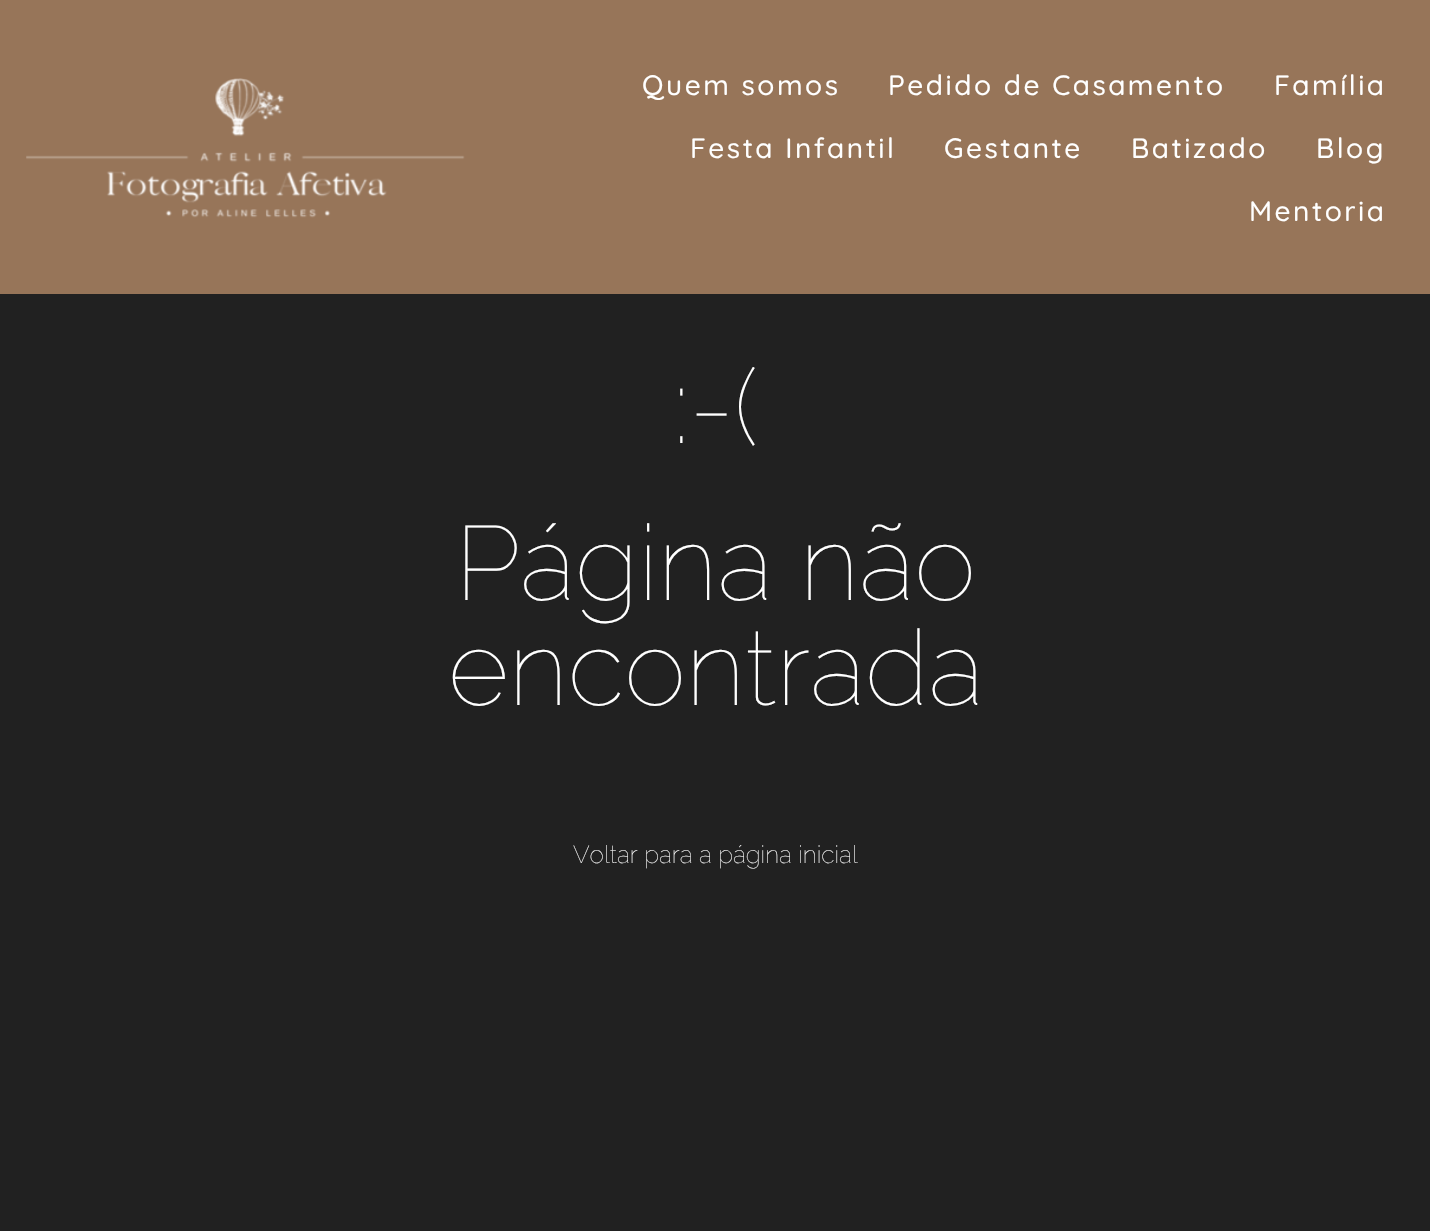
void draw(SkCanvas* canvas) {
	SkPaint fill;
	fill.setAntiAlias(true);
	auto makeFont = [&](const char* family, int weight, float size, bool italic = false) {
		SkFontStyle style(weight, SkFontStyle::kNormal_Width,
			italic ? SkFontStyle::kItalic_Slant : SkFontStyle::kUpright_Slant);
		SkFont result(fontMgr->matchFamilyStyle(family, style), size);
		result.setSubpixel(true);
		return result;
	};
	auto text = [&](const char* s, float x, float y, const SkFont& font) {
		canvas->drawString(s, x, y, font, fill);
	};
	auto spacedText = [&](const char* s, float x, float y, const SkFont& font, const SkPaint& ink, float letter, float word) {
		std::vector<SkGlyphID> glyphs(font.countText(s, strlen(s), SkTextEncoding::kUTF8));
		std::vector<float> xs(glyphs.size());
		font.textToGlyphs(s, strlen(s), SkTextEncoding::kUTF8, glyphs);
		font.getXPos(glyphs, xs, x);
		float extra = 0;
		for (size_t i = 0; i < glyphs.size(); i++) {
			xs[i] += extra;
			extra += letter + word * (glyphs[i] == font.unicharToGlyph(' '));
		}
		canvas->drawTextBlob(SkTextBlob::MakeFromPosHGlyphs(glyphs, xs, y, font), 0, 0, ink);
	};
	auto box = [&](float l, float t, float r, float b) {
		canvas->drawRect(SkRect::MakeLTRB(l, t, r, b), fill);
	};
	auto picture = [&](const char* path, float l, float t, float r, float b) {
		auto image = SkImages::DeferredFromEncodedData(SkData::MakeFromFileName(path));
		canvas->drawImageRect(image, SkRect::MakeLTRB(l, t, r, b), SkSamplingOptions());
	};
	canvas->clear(0xFF212121);
	fill.setColor(0xFF977559);
	box(0, 0, 1430, 294);
	picture("image0.png", 26, 78, 465, 218);
	auto font1 = makeFont("Quicksand", 500, 28);
	fill.setColor(0xFFFFFFFF);
	spacedText("Quem somos", 642, 95, font1, fill, 2.5f, 0);
	spacedText("Pedido de Casamento", 888, 95, font1, fill, 2.5f, 0);
	spacedText("Família", 1274, 95, font1, fill, 2.5f, 0);
	spacedText("Festa Infantil", 690, 158, font1, fill, 2.5f, 0);
	spacedText("Gestante", 944, 158, font1, fill, 2.5f, 0);
	spacedText("Batizado", 1131, 158, font1, fill, 2.5f, 0);
	spacedText("Blog", 1316, 158, font1, fill, 2.5f, 0);
	spacedText("Mentoria", 1249, 221, font1, fill, 2.5f, 0);
	auto font2 = makeFont("Raleway", 100, 105);
	text(":-(", 673, 443, font2);
	text("Página não", 455, 600, font2);
	text("encontrada", 448, 705, font2);
	auto font3 = makeFont("Raleway", 100, 24.5f);
	text("Voltar para a página inicial", 573, 863, font3);
}
